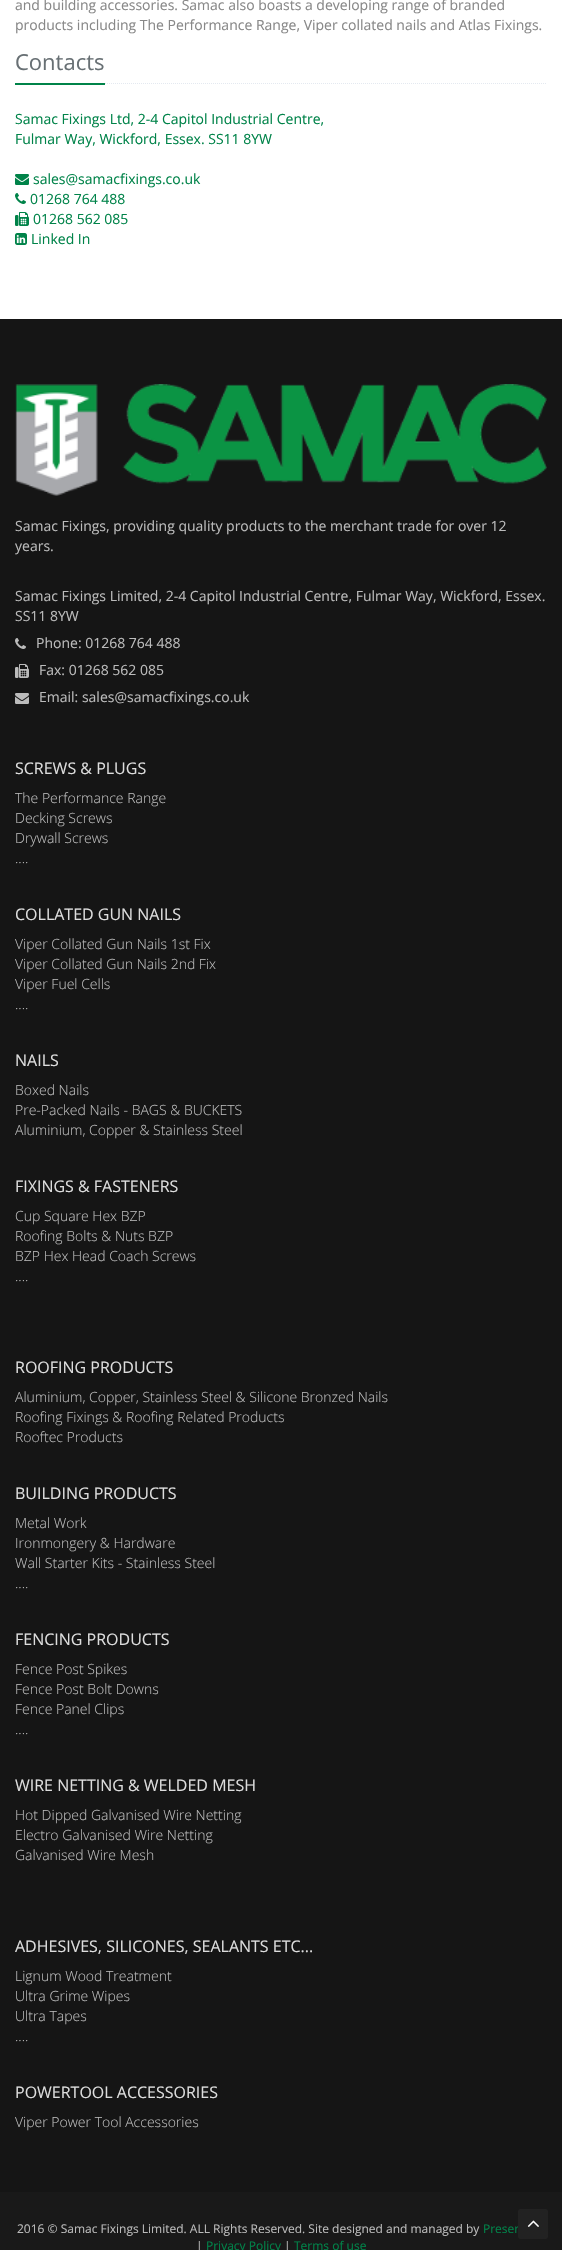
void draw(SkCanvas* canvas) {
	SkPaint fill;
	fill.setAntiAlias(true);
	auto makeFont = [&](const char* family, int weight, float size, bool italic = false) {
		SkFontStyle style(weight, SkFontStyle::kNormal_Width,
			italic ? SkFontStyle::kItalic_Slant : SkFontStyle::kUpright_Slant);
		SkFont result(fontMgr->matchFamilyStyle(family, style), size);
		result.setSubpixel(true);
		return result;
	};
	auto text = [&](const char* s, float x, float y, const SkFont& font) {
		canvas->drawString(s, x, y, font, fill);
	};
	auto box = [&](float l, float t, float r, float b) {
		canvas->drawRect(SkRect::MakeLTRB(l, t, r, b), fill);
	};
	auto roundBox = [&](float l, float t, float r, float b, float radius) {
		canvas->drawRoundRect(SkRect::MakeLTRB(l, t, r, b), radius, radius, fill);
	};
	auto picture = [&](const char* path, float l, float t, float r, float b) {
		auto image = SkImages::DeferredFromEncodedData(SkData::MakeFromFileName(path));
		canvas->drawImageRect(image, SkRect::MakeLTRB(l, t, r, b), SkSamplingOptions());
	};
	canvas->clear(0xFFFFFFFF);
	fill.setStyle(SkPaint::kStroke_Style);
	fill.setStrokeWidth(1);
	fill.setColor(0xFFE4E9F0);
	fill.setPathEffect(SkDashPathEffect::Make({{1, 1}}, 0));
	canvas->drawPath(SkPathBuilder().moveTo(15, 83.5f).lineTo(547, 83.5f).detach(), fill);
	fill.setPathEffect(nullptr);
	fill.setStyle(SkPaint::kFill_Style);
	fill.setColor(0xFF008349);
	box(15, 83, 105, 85);
	picture("image0.png", 15, 174, 29, 185);
	picture("image1.png", 15, 193, 26, 204);
	picture("image2.png", 15, 212, 29, 226);
	picture("image3.png", 15, 233, 27, 245);
	fill.setColor(0xFF151515);
	box(0, 319, 562, 2192);
	picture("image4.png", 15, 384, 547, 496);
	picture("image5.png", 15, 638, 26, 649);
	picture("image6.png", 15, 664, 29, 678);
	picture("image7.png", 15, 693, 29, 704);
	fill.setColor(0xFF191919);
	box(0, 2192, 562, 2250);
	auto font1 = makeFont("Open Sans", 400, 14);
	fill.setColor(0xFF888888);
	text("and building accessories. Samac also boasts a developing range of branded", 15, 10, font1);
	text("products including The Performance Range, Viper collated nails and Atlas Fixings.", 15, 30, font1);
	auto font2 = makeFont("Open Sans", 400, 22);
	fill.setColor(0xFF687074);
	text("Contacts", 15, 70, font2);
	fill.setColor(0xFF008349);
	text("Samac Fixings Ltd, 2-4 Capitol Industrial Centre,", 15, 124, font1);
	text("Fulmar Way, Wickford, Essex. SS11 8YW", 15, 144, font1);
	text("sales@samacfixings.co.uk", 33, 184, font1);
	text("01268 764 488", 30, 204, font1);
	text("01268 562 085", 33, 224, font1);
	text("Linked In", 31, 244, font1);
	fill.setColor(0xFFBBBBBB);
	text("Samac Fixings, providing quality products to the merchant trade for over 12", 15, 531, font1);
	text("years.", 15, 551, font1);
	text("Samac Fixings Limited, 2-4 Capitol Industrial Centre, Fulmar Way, Wickford, Essex.", 15, 601, font1);
	text("SS11 8YW", 15, 621, font1);
	text("Phone: 01268 764 488", 36, 648, font1);
	text("Fax: 01268 562 085", 39, 675, font1);
	text("Email: sales@samacfixings.co.uk", 39, 702, font1);
	auto font3 = makeFont("Open Sans", 400, 16);
	fill.setColor(0xFFDDDDDD);
	text("SCREWS & PLUGS", 15, 774, font3);
	auto font4 = makeFont("Open Sans", 300, 14);
	fill.setColor(0xFFBBBBBB);
	text("The Performance Range", 15, 803, font4);
	text("Decking Screws", 15, 823, font4);
	text("Drywall Screws", 15, 843, font4);
	text("....", 15, 863, font4);
	fill.setColor(0xFFDDDDDD);
	text("COLLATED GUN NAILS", 15, 920, font3);
	fill.setColor(0xFFBBBBBB);
	text("Viper Collated Gun Nails 1st Fix", 15, 949, font4);
	text("Viper Collated Gun Nails 2nd Fix", 15, 969, font4);
	text("Viper Fuel Cells", 15, 989, font4);
	text("....", 15, 1009, font4);
	fill.setColor(0xFFDDDDDD);
	text("NAILS", 15, 1066, font3);
	fill.setColor(0xFFBBBBBB);
	text("Boxed Nails", 15, 1095, font4);
	text("Pre-Packed Nails - BAGS & BUCKETS", 15, 1115, font4);
	text("Aluminium, Copper & Stainless Steel", 15, 1135, font4);
	fill.setColor(0xFFDDDDDD);
	text("FIXINGS & FASTENERS", 15, 1192, font3);
	fill.setColor(0xFFBBBBBB);
	text("Cup Square Hex BZP", 15, 1221, font4);
	text("Roofing Bolts & Nuts BZP", 15, 1241, font4);
	text("BZP Hex Head Coach Screws", 15, 1261, font4);
	text("....", 15, 1281, font4);
	fill.setColor(0xFFDDDDDD);
	text("ROOFING PRODUCTS", 15, 1373, font3);
	fill.setColor(0xFFBBBBBB);
	text("Aluminium, Copper, Stainless Steel & Silicone Bronzed Nails", 15, 1402, font4);
	text("Roofing Fixings & Roofing Related Products", 15, 1422, font4);
	text("Rooftec Products", 15, 1442, font4);
	fill.setColor(0xFFDDDDDD);
	text("BUILDING PRODUCTS", 15, 1499, font3);
	fill.setColor(0xFFBBBBBB);
	text("Metal Work", 15, 1528, font4);
	text("Ironmongery & Hardware", 15, 1548, font4);
	text("Wall Starter Kits - Stainless Steel", 15, 1568, font4);
	text("....", 15, 1588, font4);
	fill.setColor(0xFFDDDDDD);
	text("FENCING PRODUCTS", 15, 1645, font3);
	fill.setColor(0xFFBBBBBB);
	text("Fence Post Spikes", 15, 1674, font4);
	text("Fence Post Bolt Downs", 15, 1694, font4);
	text("Fence Panel Clips", 15, 1714, font4);
	text("....", 15, 1734, font4);
	fill.setColor(0xFFDDDDDD);
	text("WIRE NETTING & WELDED MESH", 15, 1791, font3);
	fill.setColor(0xFFBBBBBB);
	text("Hot Dipped Galvanised Wire Netting", 15, 1820, font4);
	text("Electro Galvanised Wire Netting", 15, 1840, font4);
	text("Galvanised Wire Mesh", 15, 1860, font4);
	fill.setColor(0xFFDDDDDD);
	text("ADHESIVES, SILICONES, SEALANTS ETC...", 15, 1952, font3);
	fill.setColor(0xFFBBBBBB);
	text("Lignum Wood Treatment", 15, 1981, font4);
	text("Ultra Grime Wipes", 15, 2001, font4);
	text("Ultra Tapes", 15, 2021, font4);
	text("....", 15, 2041, font4);
	fill.setColor(0xFFDDDDDD);
	text("POWERTOOL ACCESSORIES", 15, 2098, font3);
	fill.setColor(0xFFBBBBBB);
	text("Viper Power Tool Accessories", 15, 2127, font4);
	auto font5 = makeFont("Open Sans", 400, 12);
	text("2016 © Samac Fixings Limited. ALL Rights Reserved. Site designed and managed by", 17, 2233, font5);
	fill.setColor(0xFF008349);
	text("Presen", 483, 2233, font5);
	fill.setColor(0xFFBBBBBB);
	text("|", 196, 2250, font5);
	fill.setColor(0xFF008349);
	text("Privacy Policy", 206, 2250, font5);
	fill.setColor(0xFFBBBBBB);
	text("|", 284, 2250, font5);
	fill.setColor(0xFF008349);
	text("Terms of use", 294, 2250, font5);
	fill.setColor(0xFF222222);
	roundBox(518, 2209, 548, 2239, 3);
	picture("image8.png", 527, 2220, 539, 2227);
}
